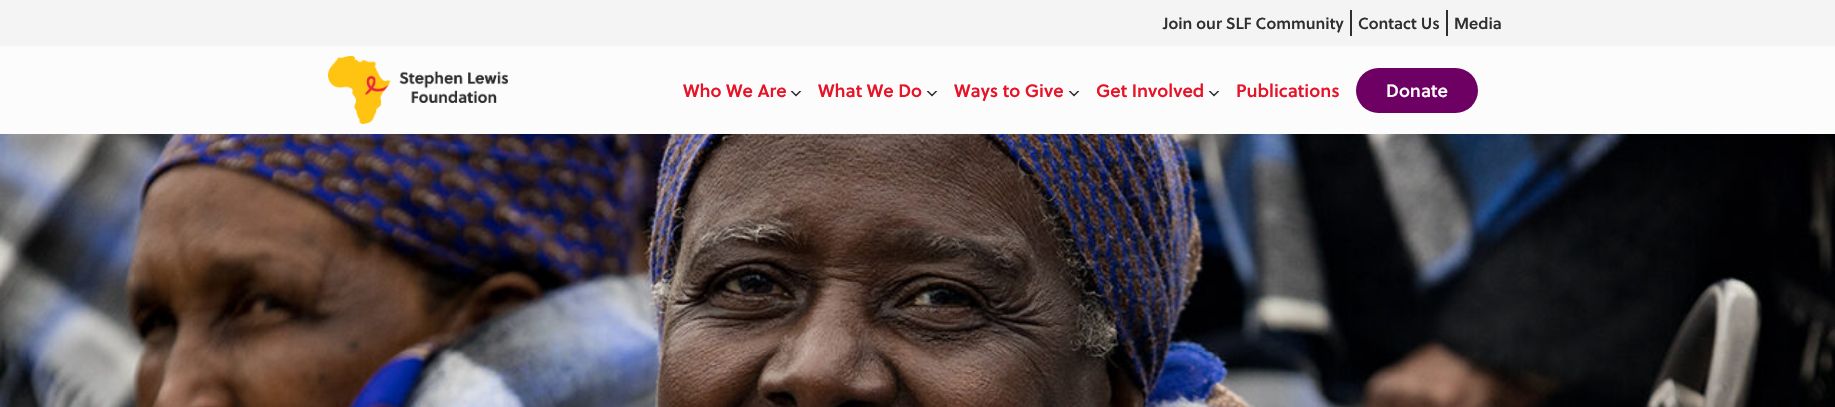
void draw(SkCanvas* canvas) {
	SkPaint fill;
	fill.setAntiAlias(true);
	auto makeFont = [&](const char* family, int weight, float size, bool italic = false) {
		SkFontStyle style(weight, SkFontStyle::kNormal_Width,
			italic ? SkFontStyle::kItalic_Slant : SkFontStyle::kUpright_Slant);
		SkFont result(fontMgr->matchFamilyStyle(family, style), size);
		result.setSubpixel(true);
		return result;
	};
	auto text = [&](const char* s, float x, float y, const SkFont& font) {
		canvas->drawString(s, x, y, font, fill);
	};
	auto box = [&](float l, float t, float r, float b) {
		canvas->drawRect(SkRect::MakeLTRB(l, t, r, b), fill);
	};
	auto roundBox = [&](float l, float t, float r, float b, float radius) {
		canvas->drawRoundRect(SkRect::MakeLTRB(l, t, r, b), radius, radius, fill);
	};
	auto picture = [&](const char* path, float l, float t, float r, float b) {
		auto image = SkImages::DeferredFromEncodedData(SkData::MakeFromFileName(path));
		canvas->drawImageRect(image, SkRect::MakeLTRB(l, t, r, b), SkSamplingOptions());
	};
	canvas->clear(0xFFF4F4F4);
	fill.setColor(0xFF2F2F2F);
	box(1350, 10, 1352, 36);
	box(1446, 10, 1448, 36);
	fill.setColor(0xFFFCFCFC);
	box(0, 46, 1835, 134);
	picture("image0.png", 328, 56, 508, 124);
	canvas->save();
	canvas->clipPath(SkPathBuilder().moveTo(790.5f, 97).lineTo(790.5f, 91).lineTo(801.5f, 91).lineTo(801.5f, 97).close().detach(), true);
	fill.setStyle(SkPaint::kStroke_Style);
	fill.setStrokeWidth(1.5f);
	fill.setColor(0xFF2F2F2F);
	canvas->drawPath(SkPathBuilder().moveTo(791.5f, 91).lineTo(796, 86.5f).lineTo(800.5f, 91).lineTo(796, 95.5f).close().detach(), fill);
	canvas->restore();
	canvas->save();
	canvas->clipPath(SkPathBuilder().moveTo(926.5f, 97).lineTo(926.5f, 91).lineTo(937.5f, 91).lineTo(937.5f, 97).close().detach(), true);
	canvas->drawPath(SkPathBuilder().moveTo(927.5f, 91).lineTo(932, 86.5f).lineTo(936.5f, 91).lineTo(932, 95.5f).close().detach(), fill);
	canvas->restore();
	canvas->save();
	canvas->clipPath(SkPathBuilder().moveTo(1068.5f, 97).lineTo(1068.5f, 91).lineTo(1079.5f, 91).lineTo(1079.5f, 97).close().detach(), true);
	canvas->drawPath(SkPathBuilder().moveTo(1069.5f, 91).lineTo(1074, 86.5f).lineTo(1078.5f, 91).lineTo(1074, 95.5f).close().detach(), fill);
	canvas->restore();
	canvas->save();
	canvas->clipPath(SkPathBuilder().moveTo(1208.5f, 97).lineTo(1208.5f, 91).lineTo(1219.5f, 91).lineTo(1219.5f, 97).close().detach(), true);
	canvas->drawPath(SkPathBuilder().moveTo(1209.5f, 91).lineTo(1214, 86.5f).lineTo(1218.5f, 91).lineTo(1214, 95.5f).close().detach(), fill);
	canvas->restore();
	fill.setStyle(SkPaint::kFill_Style);
	fill.setColor(0xFF6E0064);
	roundBox(1356, 68, 1478, 113, 22.5f);
	picture("image1.png", 0, 134, 1835, 407);
	auto font1 = makeFont("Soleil", 600, 16);
	fill.setColor(0xFF2F2F2F);
	text("Join our SLF Community", 1163, 29, font1);
	text("Contact Us", 1358, 29, font1);
	text("Media", 1454, 29, font1);
	auto font2 = makeFont("Soleil", 600, 18);
	fill.setColor(0xFFE71328);
	text("Who We Are", 683, 97, font2);
	text("What We Do", 818, 97, font2);
	text("Ways to Give", 954, 97, font2);
	text("Get Involved", 1096, 97, font2);
	text("Publications", 1236, 97, font2);
	fill.setColor(0xFFFCFCFC);
	text("Donate", 1386, 97, font2);
}
